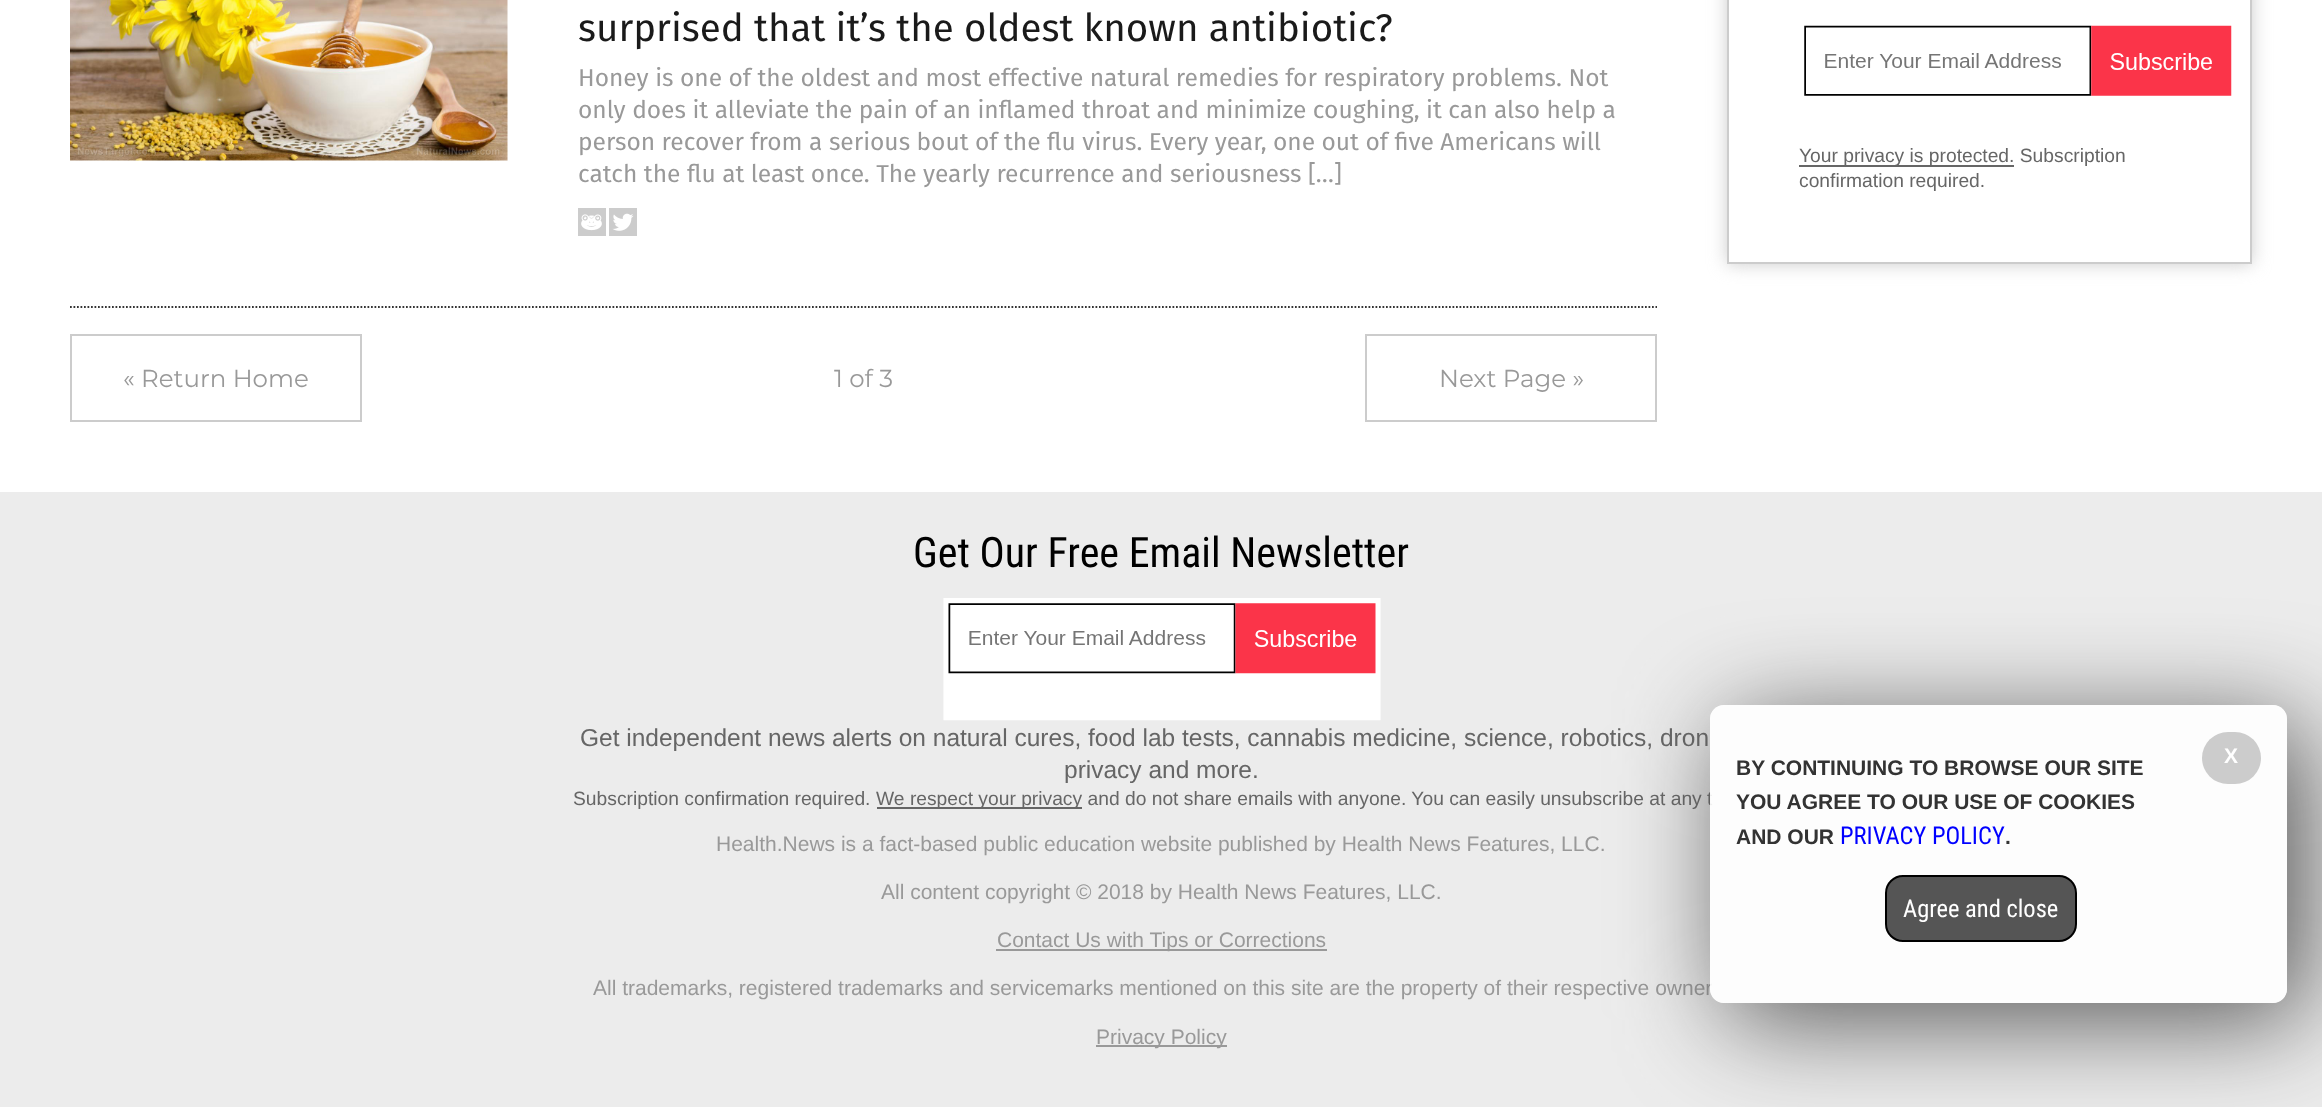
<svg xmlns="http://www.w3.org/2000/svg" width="2322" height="1107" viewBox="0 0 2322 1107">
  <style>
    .t1 { font: 38.5px Fira Sans; fill: #1a1a1a; }
    .t2 { font: 24.5px Fira Sans; fill: #999; }
    .t3 { font: 24.5px Montserrat; fill: #999; }
    .t4 { font: 19.25px Liberation Sans; fill: #666; }
    .t5 { font: 42px Roboto Condensed; fill: #000; }
    .t6 { font: 24.5px Liberation Sans; fill: #666; }
    .t7 { font: 21px Liberation Sans; fill: #999; }
    .t8 { font: bold 21px Liberation Sans; fill: #fff; }
    .t9 { font: bold 21px Liberation Sans; fill: #333; }
    .t10 { font: 24.5px Roboto Condensed; fill: #00f; }
    .t11 { font: 24.5px Roboto Condensed; fill: #fff; }
  </style>
  <defs>
    <clipPath id="clip1"><path d="M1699 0H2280V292H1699ZM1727-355H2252V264H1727Z" clip-rule="evenodd"/></clipPath>
    <clipPath id="clip2"><path d="M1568 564H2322V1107H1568ZM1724 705H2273C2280.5 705 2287 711.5 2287 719V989C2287 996.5 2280.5 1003 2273 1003H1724C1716.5 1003 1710 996.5 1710 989V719C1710 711.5 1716.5 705 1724 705Z" clip-rule="evenodd"/></clipPath>
  </defs>
  <rect width="100%" height="100%" fill="#ececec"/>
  <rect x="0" y="0" width="2322" height="492" fill="#fff"/>
  <path d="M70 307H1657" fill="none" stroke="#343434" stroke-width="1.8" stroke-dasharray="1.75 1.75"/>
  <image x="70" y="0" width="438" height="161" href="images/1.png"/>
  <text x="578" y="41" class="t1">surprised that it’s the oldest known antibiotic?</text>
  <text x="578" y="86" class="t2">Honey is one of the oldest and most effective natural remedies for respiratory problems. Not</text>
  <text x="578" y="118" class="t2">only does it alleviate the pain of an inflamed throat and minimize coughing, it can also help a</text>
  <text x="578" y="150" class="t2">person recover from a serious bout of the flu virus. Every year, one out of five Americans will</text>
  <text x="578" y="182" class="t2">catch the flu at least once. The yearly recurrence and seriousness […]</text>
  <image x="578" y="208" width="28" height="28" href="images/2.png"/>
  <image x="609" y="208" width="28" height="28" href="images/3.png"/>
  <rect x="71" y="335" width="290" height="86" fill="none" stroke="#ccc" stroke-width="2"/>
  <text x="123" y="387" class="t3">« Return Home</text>
  <text x="834" y="387" class="t3">1 of 3</text>
  <rect x="1366" y="335" width="290" height="86" fill="none" stroke="#ccc" stroke-width="2"/>
  <text x="1439" y="387" class="t3">Next Page »</text>
  <g clip-path="url(#clip1)">
    <rect x="1727" y="-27" width="525" height="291" fill="#ccc" filter="blur(9px)"/>
  </g>
  <rect x="1728" y="-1" width="523" height="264" fill="none" stroke="#ccc" stroke-width="2"/>
  <image x="1804" y="25" width="428" height="71" href="images/4.png"/>
  <rect x="1799" y="165" width="215" height="2" fill="#666"/>
  <text x="1799" y="162" class="t4">Your privacy is protected. Subscription</text>
  <text x="1799" y="187" class="t4">confirmation required.</text>
  <text x="913" y="567" class="t5">Get Our Free Email Newsletter</text>
  <image x="943" y="598" width="438" height="123" href="images/5.png"/>
  <text x="580" y="746" class="t6">Get independent news alerts on natural cures, food lab tests, cannabis medicine, science, robotics, dron</text>
  <text x="1064" y="778" class="t6">privacy and more.</text>
  <text x="573" y="805" class="t4">Subscription confirmation required.</text>
  <rect x="877" y="807" width="205" height="2" fill="#666"/>
  <text x="876" y="805" class="t4">We respect your privacy and do not share emails with anyone. You can easily unsubscribe at any t</text>
  <text x="716" y="851" class="t7">Health.News is a fact-based public education website published by Health News Features, LLC.</text>
  <text x="881" y="899" class="t7">All content copyright © 2018 by Health News Features, LLC.</text>
  <rect x="996" y="949" width="331" height="2" fill="#999"/>
  <text x="997" y="947" class="t7">Contact Us with Tips or Corrections</text>
  <text x="593" y="995" class="t7">All trademarks, registered trademarks and servicemarks mentioned on this site are the property of their respective owner</text>
  <rect x="1096" y="1045" width="131" height="2" fill="#999"/>
  <text x="1096" y="1044" class="t7">Privacy Policy</text>
  <g clip-path="url(#clip2)">
    <rect x="1727" y="723" width="578" height="297" rx="14" fill="#555" filter="blur(52.5px)"/>
  </g>
  <rect x="1710" y="705" width="577" height="298" rx="14" fill="#ffffffe6"/>
  <rect x="2202" y="732" width="59" height="52" rx="26" fill="#ccc"/>
  <text x="2224" y="763" class="t8">X</text>
  <text x="1736" y="775" class="t9">BY CONTINUING TO BROWSE OUR SITE</text>
  <text x="1736" y="809" class="t9">YOU AGREE TO OUR USE OF COOKIES</text>
  <text x="1736" y="844" class="t9">AND OUR</text>
  <text x="1840" y="844" class="t10">PRIVACY POLICY</text>
  <text x="2005" y="844" class="t9">.</text>
  <rect x="1886" y="876" width="190" height="65" rx="17" fill="#555" stroke="#000" stroke-width="2"/>
  <text x="1903" y="917" class="t11">Agree and close</text>
</svg>
